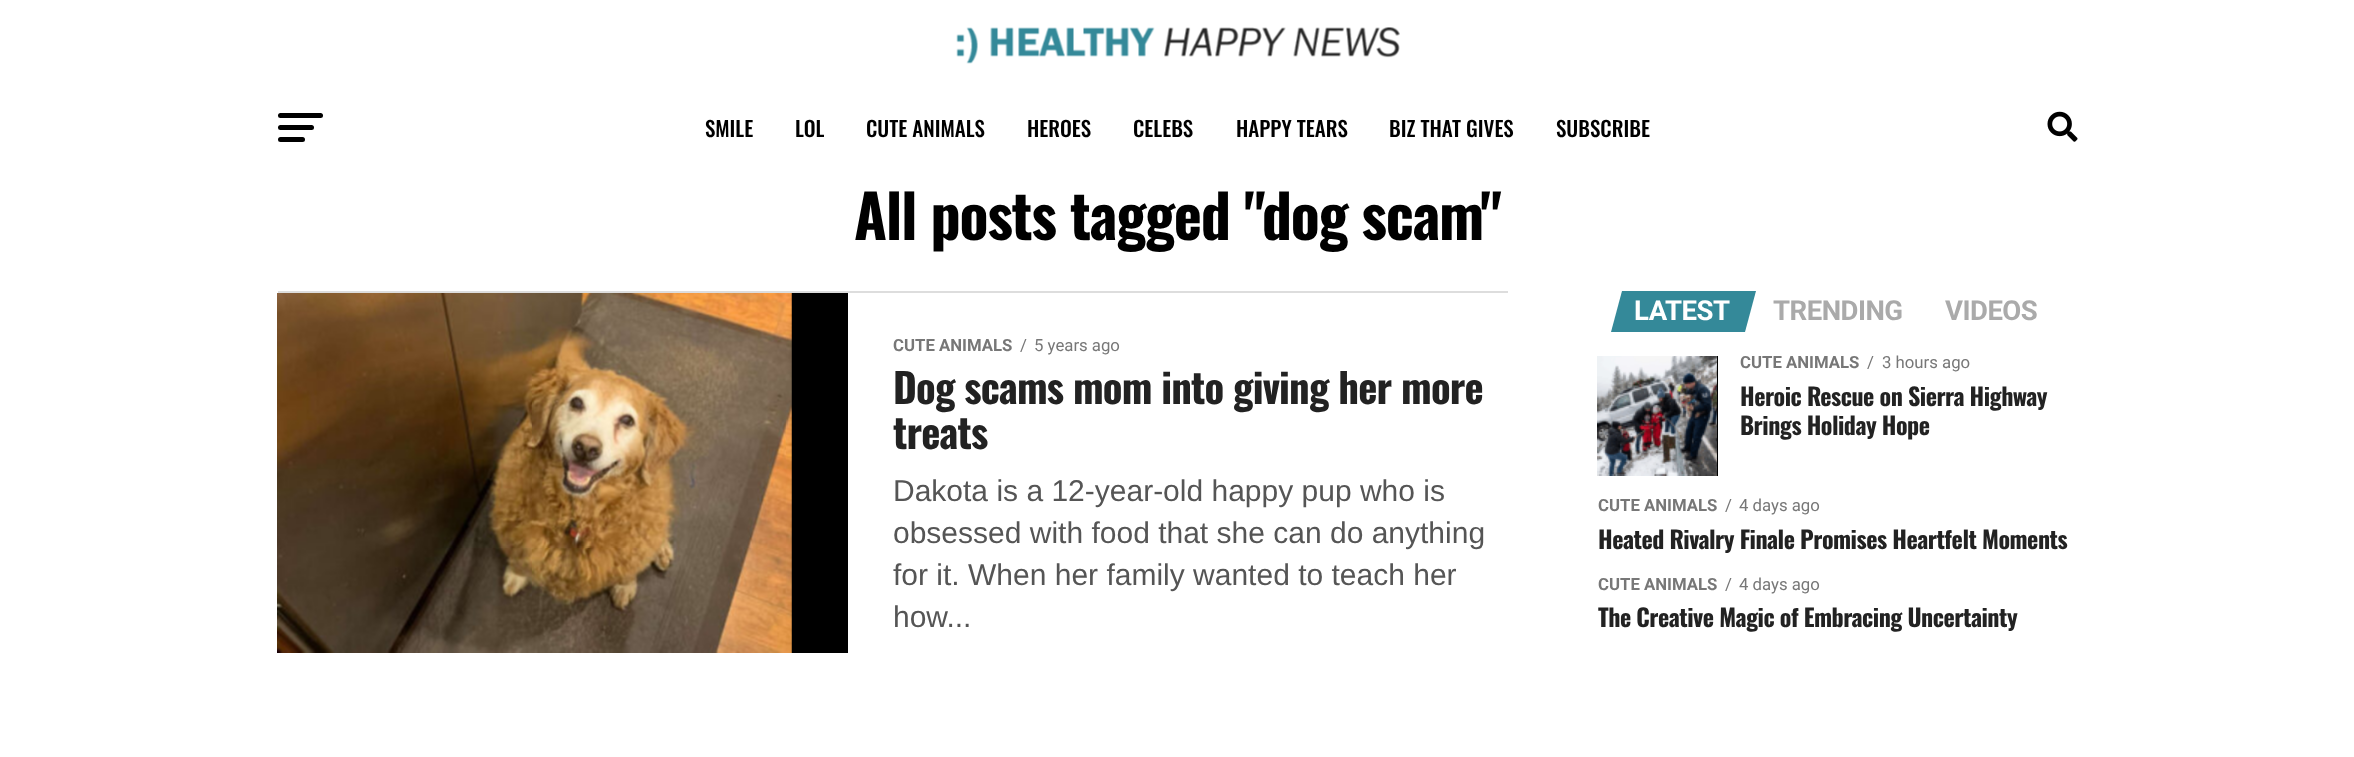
<svg xmlns="http://www.w3.org/2000/svg" width="2354" height="757" viewBox="0 0 2354 757">
  <style>
    .t1 { font: 500 21px Oswald; fill: #000; }
    .t2 { font: bold 60px Oswald; letter-spacing: -1.2px; fill: #000; }
    .t3 { font: bold 16.75px Roboto; fill: #777; }
    .t4 { font: 16.75px Roboto; fill: #777; }
    .t5 { font: bold 40.75px Oswald; letter-spacing: -0.8px; fill: #222; }
    .t6 { font: 30px Liberation Sans; fill: #555; }
    .t7 { font: bold 27.5px Roboto; letter-spacing: -0.5px; fill: #fff; }
    .t8 { font: bold 27.5px Roboto; letter-spacing: -0.5px; fill: #aaa; }
    .t9 { font: bold 24px Oswald; letter-spacing: -0.5px; fill: #222; }
  </style>
  <rect width="100%" height="100%" fill="#fff"/>
  <image x="956" y="27" width="444" height="37" href="images/1.png"/>
  <rect x="278" y="113" width="45" height="5" rx="2.5" fill="#000"/>
  <rect x="278" y="125" width="36" height="5" rx="2.5" fill="#000"/>
  <rect x="278" y="137" width="27" height="5" rx="2.5" fill="#000"/>
  <text x="705" y="137" class="t1">SMILE</text>
  <text x="795" y="137" class="t1">LOL</text>
  <text x="866" y="137" class="t1">CUTE ANIMALS</text>
  <text x="1027" y="137" class="t1">HEROES</text>
  <text x="1133" y="137" class="t1">CELEBS</text>
  <text x="1236" y="137" class="t1">HAPPY TEARS</text>
  <text x="1389" y="137" class="t1">BIZ THAT GIVES</text>
  <text x="1556" y="137" class="t1">SUBSCRIBE</text>
  <image x="2047" y="111" width="31" height="31" href="images/2.png"/>
  <text x="854" y="240" class="t2">All posts tagged "dog scam"</text>
  <rect x="278" y="291" width="1230" height="2" fill="#ddd"/>
  <rect x="791" y="293" width="57" height="360" fill="#000"/>
  <image x="277" y="293" width="515" height="360" href="images/3.png"/>
  <text x="893" y="351" class="t3">CUTE ANIMALS</text>
  <text x="1020" y="351" class="t4">/</text>
  <text x="1034" y="351" class="t4">5 years ago</text>
  <text x="893" y="404" class="t5">Dog scams mom into giving her more</text>
  <text x="893" y="449" class="t5">treats</text>
  <text x="893" y="501" class="t6">Dakota is a 12-year-old happy pup who is</text>
  <text x="893" y="543" class="t6">obsessed with food that she can do anything</text>
  <text x="893" y="585" class="t6">for it. When her family wanted to teach her</text>
  <text x="893" y="627" class="t6">how...</text>
  <path d="M1622 291H1756L1745 332H1611Z" fill="#348999"/>
  <text x="1634" y="320" class="t7">LATEST</text>
  <text x="1773" y="320" class="t8">TRENDING</text>
  <text x="1945" y="320" class="t8">VIDEOS</text>
  <rect x="1717" y="356" width="1" height="120" fill="#000"/>
  <image x="1597" y="356" width="120" height="120" href="images/4.png"/>
  <text x="1740" y="368" class="t3">CUTE ANIMALS</text>
  <text x="1867" y="368" class="t4">/</text>
  <text x="1882" y="368" class="t4">3 hours ago</text>
  <text x="1740" y="406" class="t9">Heroic Rescue on Sierra Highway</text>
  <text x="1740" y="435" class="t9">Brings Holiday Hope</text>
  <text x="1598" y="511" class="t3">CUTE ANIMALS</text>
  <text x="1725" y="511" class="t4">/</text>
  <text x="1739" y="511" class="t4">4 days ago</text>
  <text x="1598" y="549" class="t9">Heated Rivalry Finale Promises Heartfelt Moments</text>
  <text x="1598" y="590" class="t3">CUTE ANIMALS</text>
  <text x="1725" y="590" class="t4">/</text>
  <text x="1739" y="590" class="t4">4 days ago</text>
  <text x="1598" y="627" class="t9">The Creative Magic of Embracing Uncertainty</text>
</svg>
